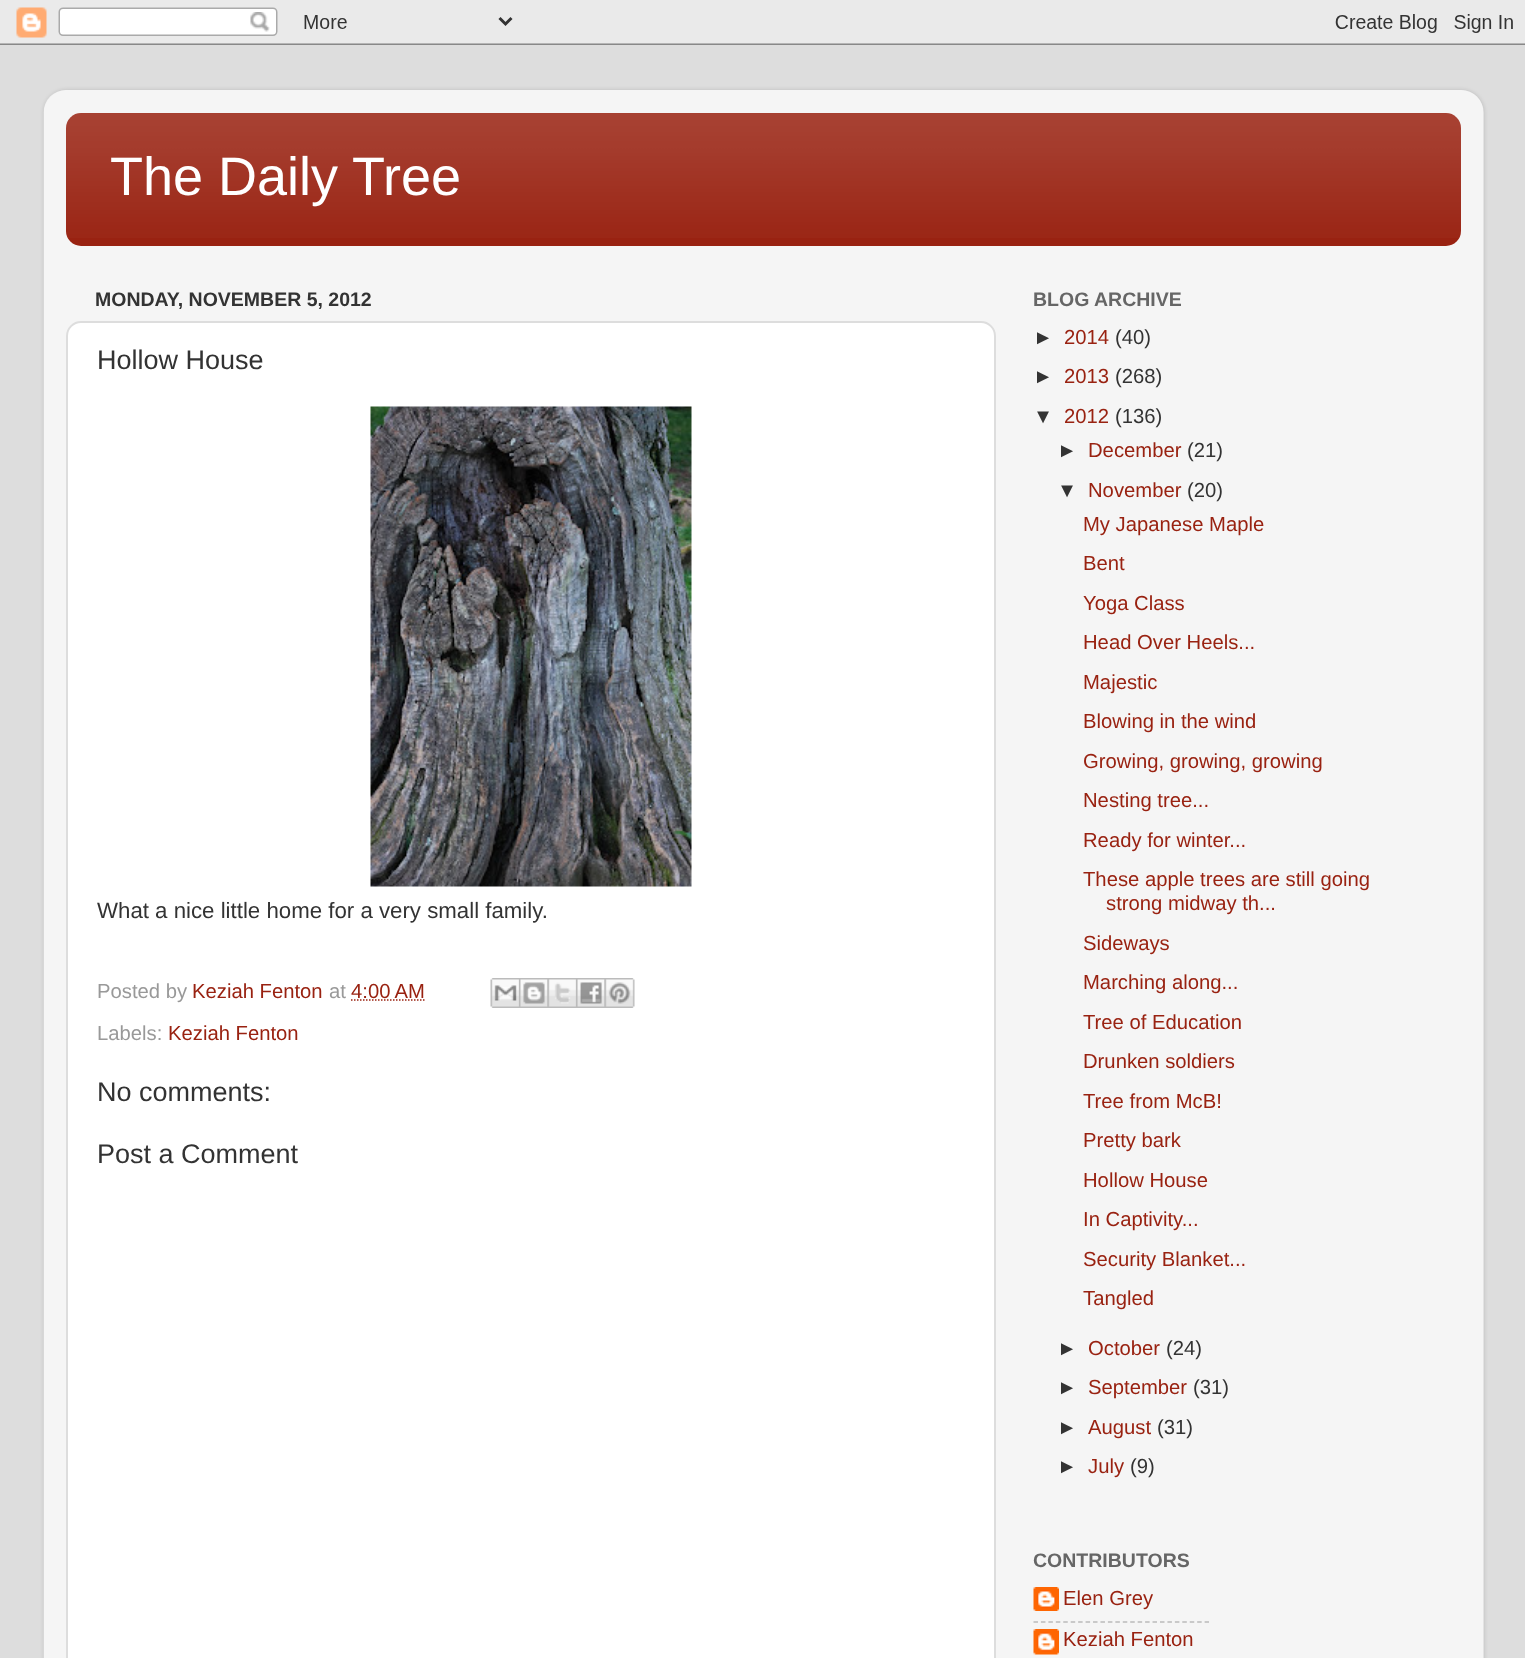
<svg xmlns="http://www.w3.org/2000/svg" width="1525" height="1658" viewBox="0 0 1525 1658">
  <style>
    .t1 { font: 54px Liberation Sans; fill: #fff; }
    .t2 { font: bold 19.5px Liberation Sans; fill: #333; }
    .t3 { font: 27px Liberation Sans; fill: #333; }
    .t4 { font: 22.25px Liberation Sans; fill: #333; }
    .t5 { font: 20.25px Liberation Sans; fill: #999; }
    .t6 { font: 20.25px Liberation Sans; fill: #921; }
    .t7 { font: bold 19.5px Liberation Sans; fill: #666; }
    .t8 { font: 20.25px Liberation Sans; fill: #333; }
  </style>
  <defs>
    <clipPath id="clip1"><path d="M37 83H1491V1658H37ZM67 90H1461C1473.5 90 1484 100.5 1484 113V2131C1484 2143.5 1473.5 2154 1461 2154H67C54.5 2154 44 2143.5 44 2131V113C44 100.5 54.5 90 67 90Z" clip-rule="evenodd"/></clipPath>
  </defs>
  <rect width="100%" height="100%" fill="#ddd"/>
  <image x="0" y="0" width="1525" height="45" href="images/1.png"/>
  <g clip-path="url(#clip1)">
    <rect x="44" y="90" width="1440" height="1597" rx="23" fill="#00000026" filter="blur(2px)"/>
  </g>
  <image x="43" y="90" width="1441" height="1568" href="images/2.png"/>
  <rect x="66" y="113" width="1395" height="133" rx="15" fill="#921"/>
  <image x="66" y="113" width="1395" height="125" href="images/3.png"/>
  <text x="110" y="195" class="t1">The Daily Tree</text>
  <text x="95" y="306" class="t2">MONDAY, NOVEMBER 5, 2012</text>
  <rect x="67" y="322" width="928" height="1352" rx="14" fill="#fff" stroke="#ddd" stroke-width="2"/>
  <text x="97" y="369" class="t3">Hollow House</text>
  <image x="370" y="406" width="322" height="481" href="images/4.png"/>
  <text x="97" y="918" class="t4">What a nice little home for a very small family.</text>
  <text x="97" y="998" class="t5">Posted by</text>
  <text x="192" y="998" class="t6">Keziah Fenton</text>
  <text x="329" y="998" class="t5">at</text>
  <text x="351" y="998" class="t6">4:00 AM</text>
  <path d="M351 1000H425" fill="none" stroke="#921" stroke-width="1.5" stroke-dasharray="1.5 1.5"/>
  <image x="490" y="978" width="29" height="30" href="images/5.png"/>
  <image x="519" y="978" width="29" height="30" href="images/6.png"/>
  <image x="547" y="978" width="29" height="30" href="images/7.png"/>
  <image x="576" y="978" width="29" height="30" href="images/8.png"/>
  <image x="604" y="978" width="31" height="30" href="images/9.png"/>
  <text x="97" y="1040" class="t5">Labels:</text>
  <text x="168" y="1040" class="t6">Keziah Fenton</text>
  <text x="97" y="1101" class="t3">No comments:</text>
  <text x="97" y="1163" class="t3">Post a Comment</text>
  <text x="1033" y="306" class="t7">BLOG ARCHIVE</text>
  <text x="1033" y="344" class="t8">►</text>
  <text x="1064" y="344" class="t6">2014</text>
  <text x="1115" y="344" class="t8">(40)</text>
  <text x="1033" y="383" class="t8">►</text>
  <text x="1064" y="383" class="t6">2013</text>
  <text x="1115" y="383" class="t8">(268)</text>
  <text x="1033" y="423" class="t8">▼</text>
  <text x="1064" y="423" class="t6">2012</text>
  <text x="1115" y="423" class="t8">(136)</text>
  <text x="1057" y="457" class="t8">►</text>
  <text x="1088" y="457" class="t6">December</text>
  <text x="1187" y="457" class="t8">(21)</text>
  <text x="1057" y="497" class="t8">▼</text>
  <text x="1088" y="497" class="t6">November</text>
  <text x="1187" y="497" class="t8">(20)</text>
  <text x="1083" y="531" class="t6">My Japanese Maple</text>
  <text x="1083" y="570" class="t6">Bent</text>
  <text x="1083" y="610" class="t6">Yoga Class</text>
  <text x="1083" y="649" class="t6">Head Over Heels...</text>
  <text x="1083" y="689" class="t6">Majestic</text>
  <text x="1083" y="728" class="t6">Blowing in the wind</text>
  <text x="1083" y="768" class="t6">Growing, growing, growing</text>
  <text x="1083" y="807" class="t6">Nesting tree...</text>
  <text x="1083" y="847" class="t6">Ready for winter...</text>
  <text x="1083" y="886" class="t6">These apple trees are still going</text>
  <text x="1106" y="910" class="t6">strong midway th...</text>
  <text x="1083" y="950" class="t6">Sideways</text>
  <text x="1083" y="989" class="t6">Marching along...</text>
  <text x="1083" y="1029" class="t6">Tree of Education</text>
  <text x="1083" y="1068" class="t6">Drunken soldiers</text>
  <text x="1083" y="1108" class="t6">Tree from McB!</text>
  <text x="1083" y="1147" class="t6">Pretty bark</text>
  <text x="1083" y="1187" class="t6">Hollow House</text>
  <text x="1083" y="1226" class="t6">In Captivity...</text>
  <text x="1083" y="1266" class="t6">Security Blanket...</text>
  <text x="1083" y="1305" class="t6">Tangled</text>
  <text x="1057" y="1355" class="t8">►</text>
  <text x="1088" y="1355" class="t6">October</text>
  <text x="1166" y="1355" class="t8">(24)</text>
  <text x="1057" y="1394" class="t8">►</text>
  <text x="1088" y="1394" class="t6">September</text>
  <text x="1193" y="1394" class="t8">(31)</text>
  <text x="1057" y="1434" class="t8">►</text>
  <text x="1088" y="1434" class="t6">August</text>
  <text x="1157" y="1434" class="t8">(31)</text>
  <text x="1057" y="1473" class="t8">►</text>
  <text x="1088" y="1473" class="t6">July</text>
  <text x="1130" y="1473" class="t8">(9)</text>
  <text x="1033" y="1567" class="t7">CONTRIBUTORS</text>
  <image x="1033" y="1587" width="26" height="24" href="images/10.png"/>
  <text x="1063" y="1605" class="t6">Elen Grey</text>
  <path d="M1033.5 1622H1209" fill="none" stroke="#bababa" stroke-width="1.5" stroke-dasharray="4.5 2.94"/>
  <image x="1033" y="1629" width="26" height="26" href="images/11.png"/>
  <text x="1063" y="1646" class="t6">Keziah Fenton</text>
</svg>
